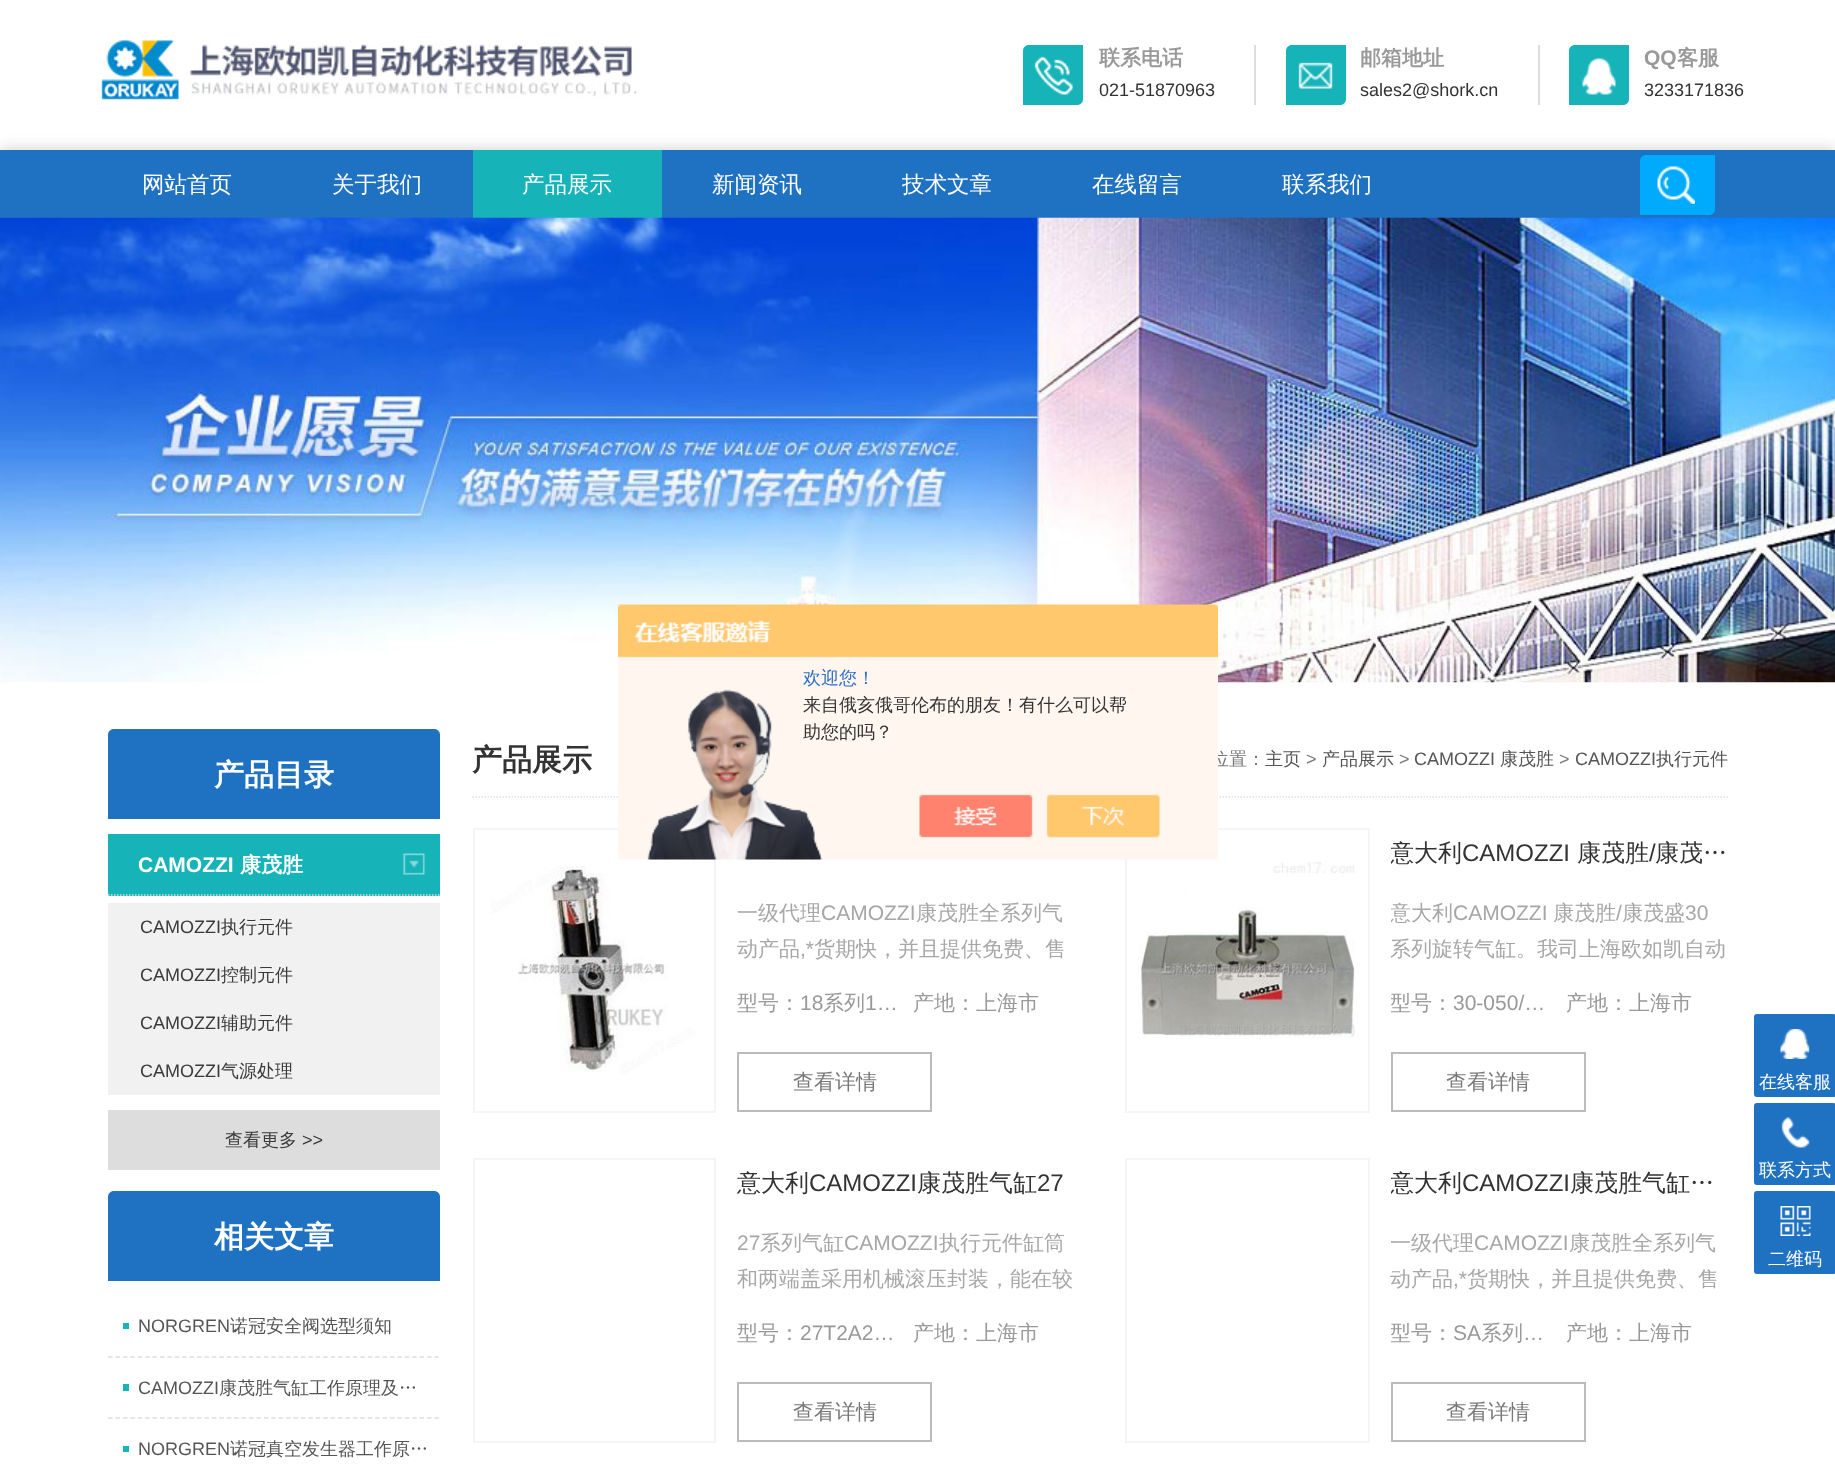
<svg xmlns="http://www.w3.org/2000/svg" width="1835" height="1464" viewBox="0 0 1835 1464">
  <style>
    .t1 { font: bold 21px WenQuanYi Zen Hei; fill: #999; }
    .t2 { font: 18px Liberation Sans; fill: #333; }
    .t3 { font: bold 21px Liberation Sans; fill: #999; }
    .t4 { font: 500 22.5px WenQuanYi Zen Hei; fill: #fff; }
    .t5 { font: 500 18px WenQuanYi Zen Hei; fill: #787878; }
    .t6 { font: 500 18px WenQuanYi Zen Hei; fill: #2e6ec6; }
    .t7 { font: 500 18px WenQuanYi Zen Hei; fill: #333; }
    .t8 { font: bold 30px WenQuanYi Zen Hei; fill: #fff; }
    .t9 { font: bold 21px Liberation Sans; fill: #fff; }
    .t10 { font: bold 21px WenQuanYi Zen Hei; fill: #fff; }
    .t11 { font: 18px Liberation Sans; fill: #3a3a3a; }
    .t12 { font: 500 18px WenQuanYi Zen Hei; fill: #3a3a3a; }
    .t13 { font: 18px Liberation Sans; fill: #555; }
    .t14 { font: 500 18px WenQuanYi Zen Hei; fill: #555; }
    .t15 { font: bold 30px WenQuanYi Zen Hei; fill: #333; }
    .t16 { font: 18px Liberation Sans; fill: #787878; }
    .t17 { font: 500 21px WenQuanYi Zen Hei; fill: #a7a7a7; }
    .t18 { font: 21px Liberation Sans; fill: #a7a7a7; }
    .t19 { font: 500 21px WenQuanYi Zen Hei; fill: #999; }
    .t20 { font: 21px Liberation Sans; fill: #999; }
    .t21 { font: 500 21px WenQuanYi Zen Hei; fill: #787878; }
    .t22 { font: 500 24px WenQuanYi Zen Hei; fill: #333; }
    .t23 { font: 24px Liberation Sans; fill: #333; }
    .t24 { font: 500 18px WenQuanYi Zen Hei; fill: #fff; }
  </style>
  <defs>
    <clipPath id="clip1"><rect x="1391" y="828" width="337" height="51"/></clipPath>
    <clipPath id="clip2"><rect x="1391" y="894" width="337" height="72"/></clipPath>
    <clipPath id="clip3"><rect x="1391" y="981" width="162" height="42"/></clipPath>
    <clipPath id="clip4"><rect x="1391" y="1158" width="337" height="51"/></clipPath>
    <clipPath id="clip5"><rect x="1391" y="1311" width="162" height="42"/></clipPath>
  </defs>
  <rect width="100%" height="100%" fill="#fff"/>
  <image x="101" y="40" width="536" height="60" href="images/1.png"/>
  <rect x="1254" y="45" width="2" height="60" fill="#ddd"/>
  <path d="M1029 45H1083V99C1083 102.5 1080.5 105 1077 105H1023V51C1023 47.5 1025.5 45 1029 45Z" fill="#16b4b9"/>
  <image x="1034" y="56" width="39" height="39" href="images/2.png"/>
  <text x="1099" y="65" class="t1">联系电话</text>
  <text x="1099" y="96" class="t2">021-51870963</text>
  <rect x="1538" y="45" width="2" height="60" fill="#ddd"/>
  <path d="M1292 45H1346V99C1346 102.5 1343.5 105 1340 105H1286V51C1286 47.5 1288.5 45 1292 45Z" fill="#16b4b9"/>
  <image x="1298" y="62" width="35" height="27" href="images/3.png"/>
  <text x="1360" y="65" class="t1">邮箱地址</text>
  <text x="1360" y="96" class="t2">sales2@shork.cn</text>
  <path d="M1575 45H1629V99C1629 102.5 1626.5 105 1623 105H1569V51C1569 47.5 1571.5 45 1575 45Z" fill="#16b4b9"/>
  <image x="1582" y="58" width="34" height="37" href="images/4.png"/>
  <text x="1644" y="65" class="t3">QQ</text>
  <text x="1677" y="65" class="t1">客服</text>
  <text x="1644" y="96" class="t2">3233171836</text>
  <rect x="0" y="150" width="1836" height="68" fill="#00000033" filter="blur(7.5px)"/>
  <rect x="0" y="150" width="1835" height="68" fill="#1f71c2"/>
  <text x="142" y="192" class="t4">网站首页</text>
  <text x="332" y="192" class="t4">关于我们</text>
  <rect x="473" y="150" width="189" height="68" fill="#16b4b9"/>
  <text x="522" y="192" class="t4">产品展示</text>
  <text x="712" y="192" class="t4">新闻资讯</text>
  <text x="902" y="192" class="t4">技术文章</text>
  <text x="1092" y="192" class="t4">在线留言</text>
  <text x="1282" y="192" class="t4">联系我们</text>
  <path d="M1646 155H1715V209C1715 212.5 1712.5 215 1709 215H1640V161C1640 157.5 1642.5 155 1646 155Z" fill="#00abfd"/>
  <image x="1657" y="166" width="38" height="38" href="images/5.png"/>
  <image x="0" y="217" width="1835" height="466" href="images/6.png"/>
  <path d="M472.5 797H1728" fill="none" stroke="#dedede" stroke-width="1.5" stroke-dasharray="1.5 1.5"/>
  <text x="1211" y="765" class="t5">位置：</text>
  <rect x="474" y="829" width="241" height="283" fill="none" stroke="#f5f5f5" stroke-width="2"/>
  <rect x="1126" y="829" width="243" height="283" fill="none" stroke="#f5f5f5" stroke-width="2"/>
  <image x="618" y="604" width="600" height="256" href="images/7.png"/>
  <text x="803" y="684" class="t6">欢迎您！</text>
  <text x="803" y="711" class="t7">来自俄亥俄哥伦布的朋友！有什么可以帮</text>
  <text x="803" y="738" class="t7">助您的吗？</text>
  <path d="M114 729H434C437.5 729 440 731.5 440 735V819H108V735C108 731.5 110.5 729 114 729Z" fill="#1f71c2"/>
  <text x="214" y="785" class="t8">产品目录</text>
  <rect x="108" y="834" width="332" height="62" fill="#16b4b9"/>
  <path d="M108 895H439.5" fill="none" stroke="#dedede" stroke-width="1.5" stroke-dasharray="1.5 1.5"/>
  <text x="138" y="872" class="t9">CAMOZZI</text>
  <text x="240" y="872" class="t10">康茂胜</text>
  <image x="403" y="853" width="22" height="22" href="images/8.png"/>
  <rect x="108" y="903" width="332" height="192" fill="#f1f1f1"/>
  <text x="140" y="933" class="t11">CAMOZZI</text>
  <text x="221" y="933" class="t12">执行元件</text>
  <text x="140" y="981" class="t11">CAMOZZI</text>
  <text x="221" y="981" class="t12">控制元件</text>
  <text x="140" y="1029" class="t11">CAMOZZI</text>
  <text x="221" y="1029" class="t12">辅助元件</text>
  <text x="140" y="1077" class="t11">CAMOZZI</text>
  <text x="221" y="1077" class="t12">气源处理</text>
  <rect x="108" y="1110" width="332" height="60" fill="#ddd"/>
  <text x="225" y="1146" class="t12">查看更多</text>
  <text x="302" y="1146" class="t11">&gt;&gt;</text>
  <path d="M114 1191H434C437.5 1191 440 1193.5 440 1197V1281H108V1197C108 1193.5 110.5 1191 114 1191Z" fill="#1f71c2"/>
  <text x="214" y="1247" class="t8">相关文章</text>
  <rect x="123" y="1323" width="6" height="6" fill="#16b4b9"/>
  <path d="M108 1357H439.5" fill="none" stroke="#dedede" stroke-width="1.5" stroke-dasharray="4.5 2.92"/>
  <text x="138" y="1332" class="t13">NORGREN</text>
  <text x="230" y="1332" class="t14">诺冠安全阀选型须知</text>
  <rect x="123" y="1384" width="6" height="7" fill="#16b4b9"/>
  <path d="M108 1418H439.5" fill="none" stroke="#dedede" stroke-width="1.5" stroke-dasharray="4.5 2.92"/>
  <text x="138" y="1394" class="t13">CAMOZZI</text>
  <text x="219" y="1394" class="t14">康茂胜气缸工作原理及…</text>
  <rect x="123" y="1446" width="6" height="6" fill="#16b4b9"/>
  <text x="138" y="1455" class="t13">NORGREN</text>
  <text x="230" y="1455" class="t14">诺冠真空发生器工作原…</text>
  <text x="472" y="770" class="t15">产品展示</text>
  <text x="1265" y="765" class="t14">主页</text>
  <text x="1306" y="765" class="t16">&gt;</text>
  <text x="1322" y="765" class="t14">产品展示</text>
  <text x="1399" y="765" class="t16">&gt;</text>
  <text x="1414" y="765" class="t13">CAMOZZI</text>
  <text x="1500" y="765" class="t14">康茂胜</text>
  <text x="1559" y="765" class="t16">&gt;</text>
  <text x="1575" y="765" class="t13">CAMOZZI</text>
  <text x="1656" y="765" class="t14">执行元件</text>
  <image x="491" y="865" width="204" height="209" href="images/9.png"/>
  <text x="737" y="920" class="t17">一级代理</text>
  <text x="821" y="920" class="t18">CAMOZZI</text>
  <text x="916" y="920" class="t17">康茂胜全系列气</text>
  <text x="737" y="956" class="t17">动产品</text>
  <text x="800" y="956" class="t18">,*</text>
  <text x="814" y="956" class="t17">货期快，并且提供免费、售</text>
  <text x="737" y="1010" class="t19">型号：</text>
  <text x="800" y="1010" class="t20">18</text>
  <text x="823" y="1010" class="t19">系列</text>
  <text x="865" y="1010" class="t20">1…</text>
  <text x="913" y="1010" class="t19">产地：上海市</text>
  <rect x="738" y="1053" width="193" height="58" fill="none" stroke="#bbb" stroke-width="2"/>
  <text x="793" y="1089" class="t21">查看详情</text>
  <image x="1138" y="862" width="217" height="177" href="images/10.png"/>
  <g clip-path="url(#clip1)">
    <text x="1390" y="861" class="t22">意大利</text>
  </g>
  <text x="1462" y="861" class="t23">CAMOZZI</text>
  <text x="1577" y="861" class="t22">康茂胜</text>
  <text x="1649" y="861" class="t23">/</text>
  <text x="1655" y="861" class="t22">康茂…</text>
  <g clip-path="url(#clip2)">
    <text x="1390" y="920" class="t17">意大利</text>
  </g>
  <text x="1453" y="920" class="t18">CAMOZZI</text>
  <text x="1553" y="920" class="t17">康茂胜</text>
  <text x="1616" y="920" class="t18">/</text>
  <text x="1622" y="920" class="t17">康茂盛</text>
  <text x="1685" y="920" class="t18">30</text>
  <text x="1390" y="956" class="t17">系列旋转气缸。我司上海欧如凯自动</text>
  <g clip-path="url(#clip3)">
    <text x="1390" y="1010" class="t19">型号：</text>
  </g>
  <text x="1453" y="1010" class="t20">30-050/…</text>
  <text x="1566" y="1010" class="t19">产地：上海市</text>
  <rect x="1392" y="1053" width="193" height="58" fill="none" stroke="#bbb" stroke-width="2"/>
  <text x="1446" y="1089" class="t21">查看详情</text>
  <rect x="474" y="1159" width="241" height="283" fill="none" stroke="#f5f5f5" stroke-width="2"/>
  <text x="737" y="1191" class="t22">意大利</text>
  <text x="809" y="1191" class="t23">CAMOZZI</text>
  <text x="917" y="1191" class="t22">康茂胜气缸</text>
  <text x="1037" y="1191" class="t23">27</text>
  <text x="737" y="1250" class="t18">27</text>
  <text x="760" y="1250" class="t17">系列气缸</text>
  <text x="844" y="1250" class="t18">CAMOZZI</text>
  <text x="939" y="1250" class="t17">执行元件缸筒</text>
  <text x="737" y="1286" class="t17">和两端盖采用机械滚压封装，能在较</text>
  <text x="737" y="1340" class="t19">型号：</text>
  <text x="800" y="1340" class="t20">27T2A2…</text>
  <text x="913" y="1340" class="t19">产地：上海市</text>
  <rect x="738" y="1383" width="193" height="58" fill="none" stroke="#bbb" stroke-width="2"/>
  <text x="793" y="1419" class="t21">查看详情</text>
  <rect x="1126" y="1159" width="243" height="283" fill="none" stroke="#f5f5f5" stroke-width="2"/>
  <g clip-path="url(#clip4)">
    <text x="1390" y="1191" class="t22">意大利</text>
  </g>
  <text x="1462" y="1191" class="t23">CAMOZZI</text>
  <text x="1570" y="1191" class="t22">康茂胜气缸…</text>
  <text x="1390" y="1250" class="t17">一级代理</text>
  <text x="1474" y="1250" class="t18">CAMOZZI</text>
  <text x="1569" y="1250" class="t17">康茂胜全系列气</text>
  <text x="1390" y="1286" class="t17">动产品</text>
  <text x="1453" y="1286" class="t18">,*</text>
  <text x="1467" y="1286" class="t17">货期快，并且提供免费、售</text>
  <g clip-path="url(#clip5)">
    <text x="1390" y="1340" class="t19">型号：</text>
  </g>
  <text x="1453" y="1340" class="t20">SA</text>
  <text x="1481" y="1340" class="t19">系列</text>
  <text x="1523" y="1340" class="t20">…</text>
  <text x="1566" y="1340" class="t19">产地：上海市</text>
  <rect x="1392" y="1383" width="193" height="58" fill="none" stroke="#bbb" stroke-width="2"/>
  <text x="1446" y="1419" class="t21">查看详情</text>
  <rect x="1754" y="1014" width="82" height="83" rx="3" fill="#1f71c2"/>
  <image x="1780" y="1029" width="30" height="30" href="images/11.png"/>
  <text x="1759" y="1088" class="t24">在线客服</text>
  <rect x="1754" y="1103" width="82" height="82" rx="3" fill="#1f71c2"/>
  <image x="1781" y="1117" width="29" height="31" href="images/12.png"/>
  <text x="1759" y="1176" class="t24">联系方式</text>
  <rect x="1754" y="1191" width="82" height="83" rx="3" fill="#1f71c2"/>
  <image x="1780" y="1206" width="31" height="30" href="images/13.png"/>
  <text x="1768" y="1265" class="t24">二维码</text>
</svg>
